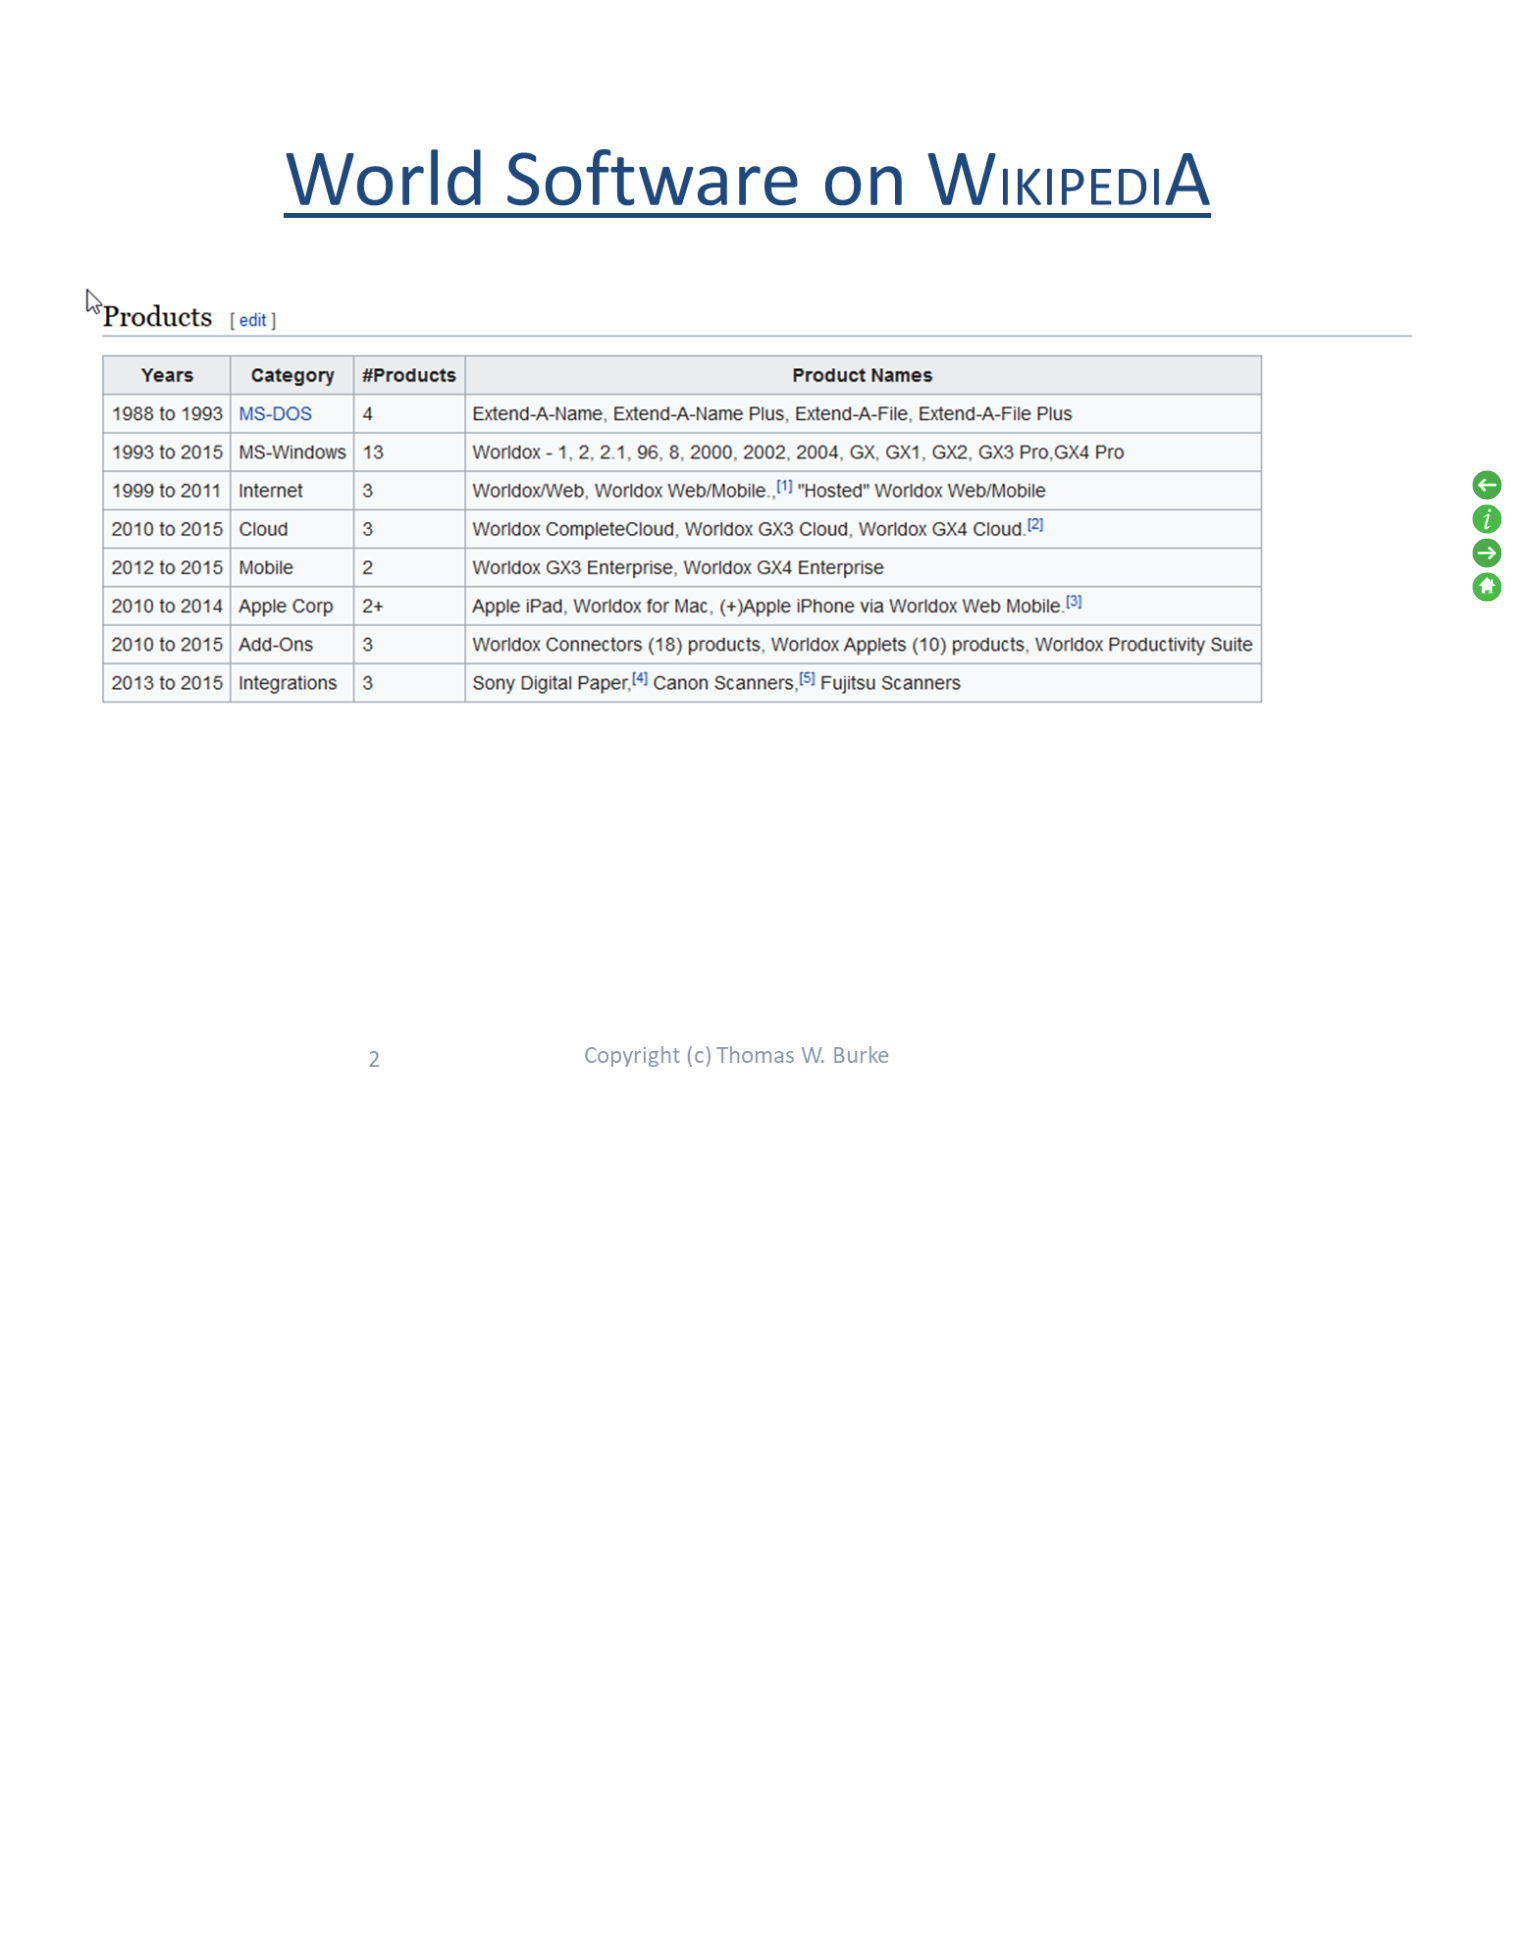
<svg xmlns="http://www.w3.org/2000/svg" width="1520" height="1959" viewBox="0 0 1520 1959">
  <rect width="100%" height="100%" fill="#fff"/>
  <image x="85" y="149" width="1328" height="918" href="images/1.png"/>
  <image x="1472" y="470" width="30" height="30" href="images/2.png"/>
  <image x="1472" y="504" width="30" height="30" href="images/3.png"/>
  <image x="1472" y="538" width="30" height="30" href="images/4.png"/>
  <image x="1472" y="572" width="30" height="30" href="images/5.png"/>
</svg>
